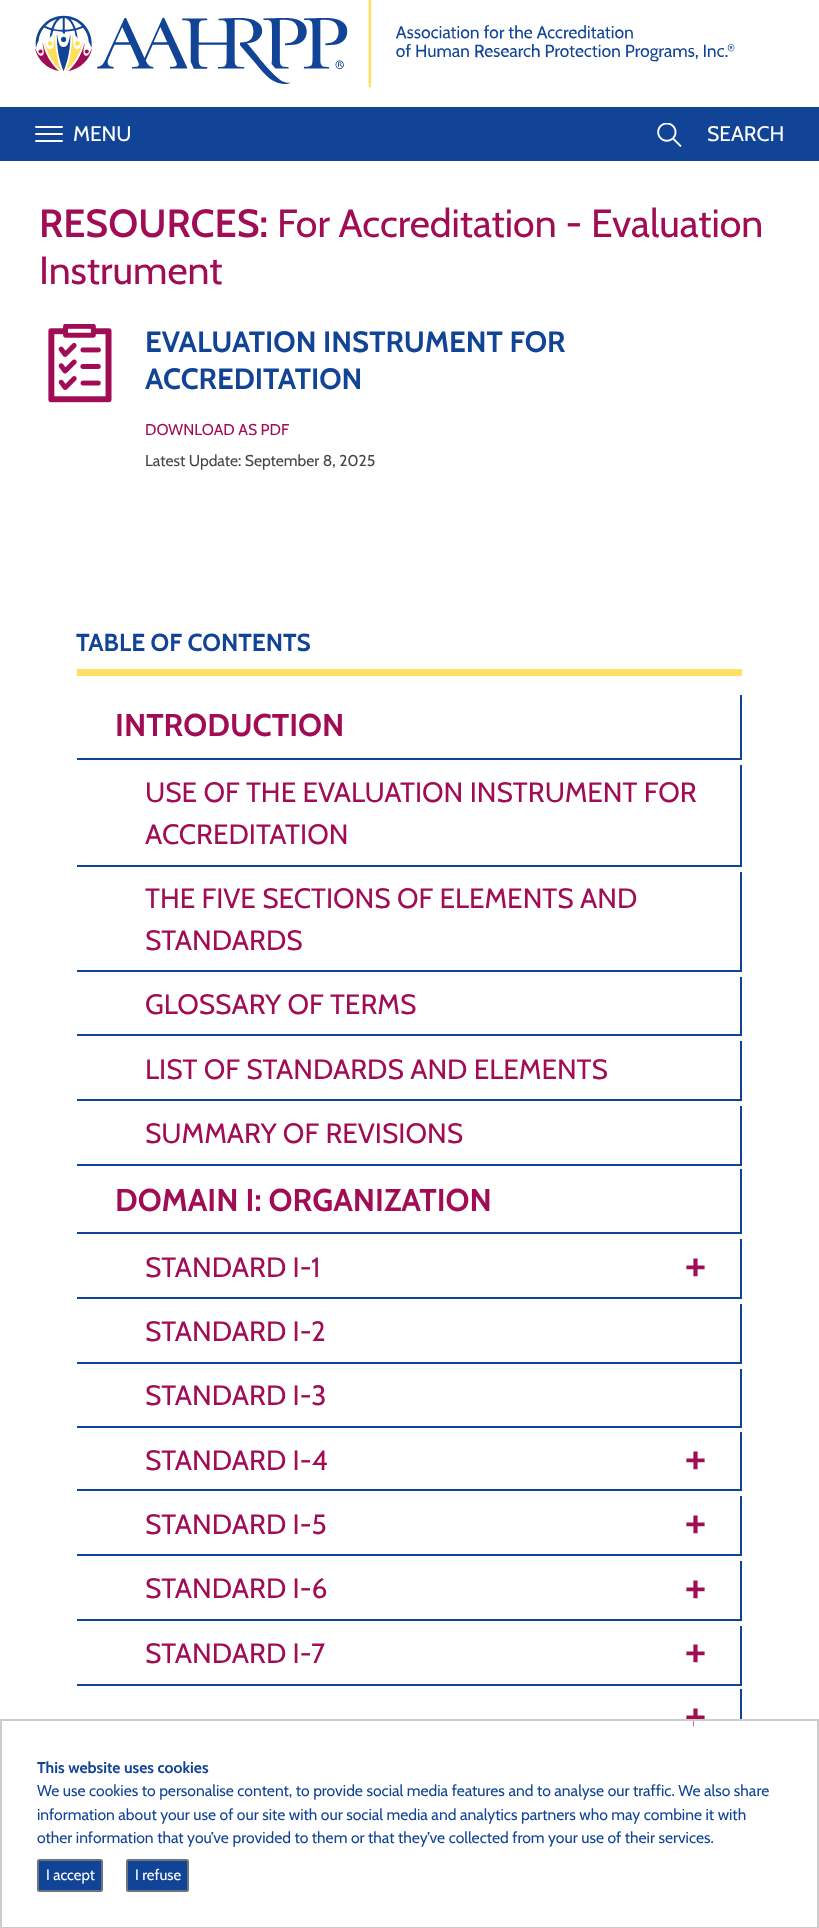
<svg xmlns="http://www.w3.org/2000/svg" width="819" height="1928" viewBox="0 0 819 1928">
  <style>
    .t1 { font: 21px Cabin; fill: #fff; }
    .t2 { font: 600 39.25px Cabin; fill: #a10d55; }
    .t3 { font: 39.25px Cabin; fill: #a10d55; }
    .t4 { font: bold 29.4px Cabin; fill: #114496; }
    .t5 { font: 15.7px Cabin; fill: #a10d55; }
    .t6 { font: 15.7px Cabin; fill: #454545; }
    .t7 { font: bold 24.5px Cabin; fill: #114496; }
    .t8 { font: bold 31.5px Cabin; fill: #a10d55; }
    .t9 { font: 28px Cabin; fill: #a10d55; }
    .t10 { font: 52px Cabin; fill: #a10d55; }
    .t11 { font: bold 15.7px Cabin; fill: #114496; }
    .t12 { font: 15.7px Cabin; fill: #114496; }
    .t13 { font: 15px Cabin; fill: #fff; }
  </style>
  <rect width="100%" height="100%" fill="#fff"/>
  <image x="35" y="0" width="700" height="88" href="images/1.png"/>
  <rect x="0" y="107" width="819" height="54" fill="#114496"/>
  <rect x="35" y="126" width="28" height="2" rx="1" fill="#fff"/>
  <rect x="35" y="133" width="28" height="2" rx="1" fill="#fff"/>
  <rect x="35" y="140" width="28" height="2" rx="1" fill="#fff"/>
  <text x="73" y="141" class="t1">MENU</text>
  <image x="657" y="123" width="25" height="24" href="images/2.png"/>
  <text x="707" y="141" class="t1">SEARCH</text>
  <text x="39" y="237" class="t2">RESOURCES:</text>
  <text x="277" y="237" class="t3">For Accreditation - Evaluation</text>
  <text x="39" y="284" class="t3">Instrument</text>
  <image x="48" y="324" width="64" height="79" href="images/3.png"/>
  <text x="145" y="352" class="t4">EVALUATION INSTRUMENT FOR</text>
  <text x="145" y="389" class="t4">ACCREDITATION</text>
  <text x="145" y="435" class="t5">DOWNLOAD AS PDF</text>
  <text x="145" y="466" class="t6">Latest Update: September 8, 2025</text>
  <rect x="77" y="669" width="665" height="7" fill="#ffe063"/>
  <text x="76" y="651" class="t7">TABLE OF CONTENTS</text>
  <rect x="740" y="695" width="2" height="65" fill="#114496"/>
  <rect x="77" y="758" width="665" height="2" fill="#114496"/>
  <text x="115" y="736" class="t8">INTRODUCTION</text>
  <rect x="740" y="765" width="2" height="101" fill="#114496"/>
  <rect x="77" y="865" width="665" height="2" fill="#114496"/>
  <text x="145" y="802" class="t9">USE OF THE EVALUATION INSTRUMENT FOR</text>
  <text x="145" y="844" class="t9">ACCREDITATION</text>
  <rect x="740" y="872" width="2" height="99" fill="#114496"/>
  <rect x="77" y="970" width="665" height="2" fill="#114496"/>
  <text x="145" y="908" class="t9">THE FIVE SECTIONS OF ELEMENTS AND</text>
  <text x="145" y="950" class="t9">STANDARDS</text>
  <rect x="740" y="977" width="2" height="59" fill="#114496"/>
  <rect x="77" y="1034" width="665" height="2" fill="#114496"/>
  <text x="145" y="1014" class="t9">GLOSSARY OF TERMS</text>
  <rect x="740" y="1041" width="2" height="60" fill="#114496"/>
  <rect x="77" y="1099" width="665" height="2" fill="#114496"/>
  <text x="145" y="1079" class="t9">LIST OF STANDARDS AND ELEMENTS</text>
  <rect x="740" y="1106" width="2" height="60" fill="#114496"/>
  <rect x="77" y="1164" width="665" height="2" fill="#114496"/>
  <text x="145" y="1143" class="t9">SUMMARY OF REVISIONS</text>
  <rect x="740" y="1169" width="2" height="65" fill="#114496"/>
  <rect x="77" y="1232" width="665" height="2" fill="#114496"/>
  <text x="115" y="1211" class="t8">DOMAIN I: ORGANIZATION</text>
  <rect x="740" y="1239" width="2" height="60" fill="#114496"/>
  <rect x="77" y="1297" width="665" height="2" fill="#114496"/>
  <text x="145" y="1277" class="t9">STANDARD I-1</text>
  <text x="684" y="1282" class="t10">+</text>
  <rect x="740" y="1304" width="2" height="59" fill="#114496"/>
  <rect x="77" y="1362" width="665" height="2" fill="#114496"/>
  <text x="145" y="1341" class="t9">STANDARD I-2</text>
  <rect x="740" y="1369" width="2" height="59" fill="#114496"/>
  <rect x="77" y="1426" width="665" height="2" fill="#114496"/>
  <text x="145" y="1405" class="t9">STANDARD I-3</text>
  <rect x="740" y="1432" width="2" height="59" fill="#114496"/>
  <rect x="77" y="1489" width="665" height="2" fill="#114496"/>
  <text x="145" y="1470" class="t9">STANDARD I-4</text>
  <text x="684" y="1475" class="t10">+</text>
  <rect x="740" y="1496" width="2" height="60" fill="#114496"/>
  <rect x="77" y="1554" width="665" height="2" fill="#114496"/>
  <text x="145" y="1534" class="t9">STANDARD I-5</text>
  <text x="684" y="1539" class="t10">+</text>
  <rect x="740" y="1561" width="2" height="60" fill="#114496"/>
  <rect x="77" y="1619" width="665" height="2" fill="#114496"/>
  <text x="145" y="1598" class="t9">STANDARD I-6</text>
  <text x="684" y="1604" class="t10">+</text>
  <rect x="740" y="1626" width="2" height="59" fill="#114496"/>
  <rect x="77" y="1684" width="665" height="2" fill="#114496"/>
  <text x="145" y="1663" class="t9">STANDARD I-7</text>
  <text x="684" y="1668" class="t10">+</text>
  <rect x="740" y="1689" width="2" height="30" fill="#114496"/>
  <text x="684" y="1732" class="t10">+</text>
  <rect x="694" y="1721" width="5" height="6" fill="#fff"/>
  <rect x="1" y="1720" width="817" height="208" fill="none" stroke="#ccc" stroke-width="2"/>
  <text x="37" y="1773" class="t11">This website uses cookies</text>
  <text x="37" y="1796" class="t12">We use cookies to personalise content, to provide social media features and to analyse our traffic. We also share</text>
  <text x="37" y="1820" class="t12">information about your use of our site with our social media and analytics partners who may combine it with</text>
  <text x="37" y="1843" class="t12">other information that you’ve provided to them or that they’ve collected from your use of their services.</text>
  <rect x="38" y="1860" width="64" height="31" rx="1.5" fill="#114496" stroke="#6c757d" stroke-width="2"/>
  <text x="46" y="1880" class="t13">I accept</text>
  <rect x="127" y="1860" width="61" height="31" rx="1.5" fill="#114496" stroke="#6c757d" stroke-width="2"/>
  <text x="135" y="1880" class="t13">I refuse</text>
</svg>
